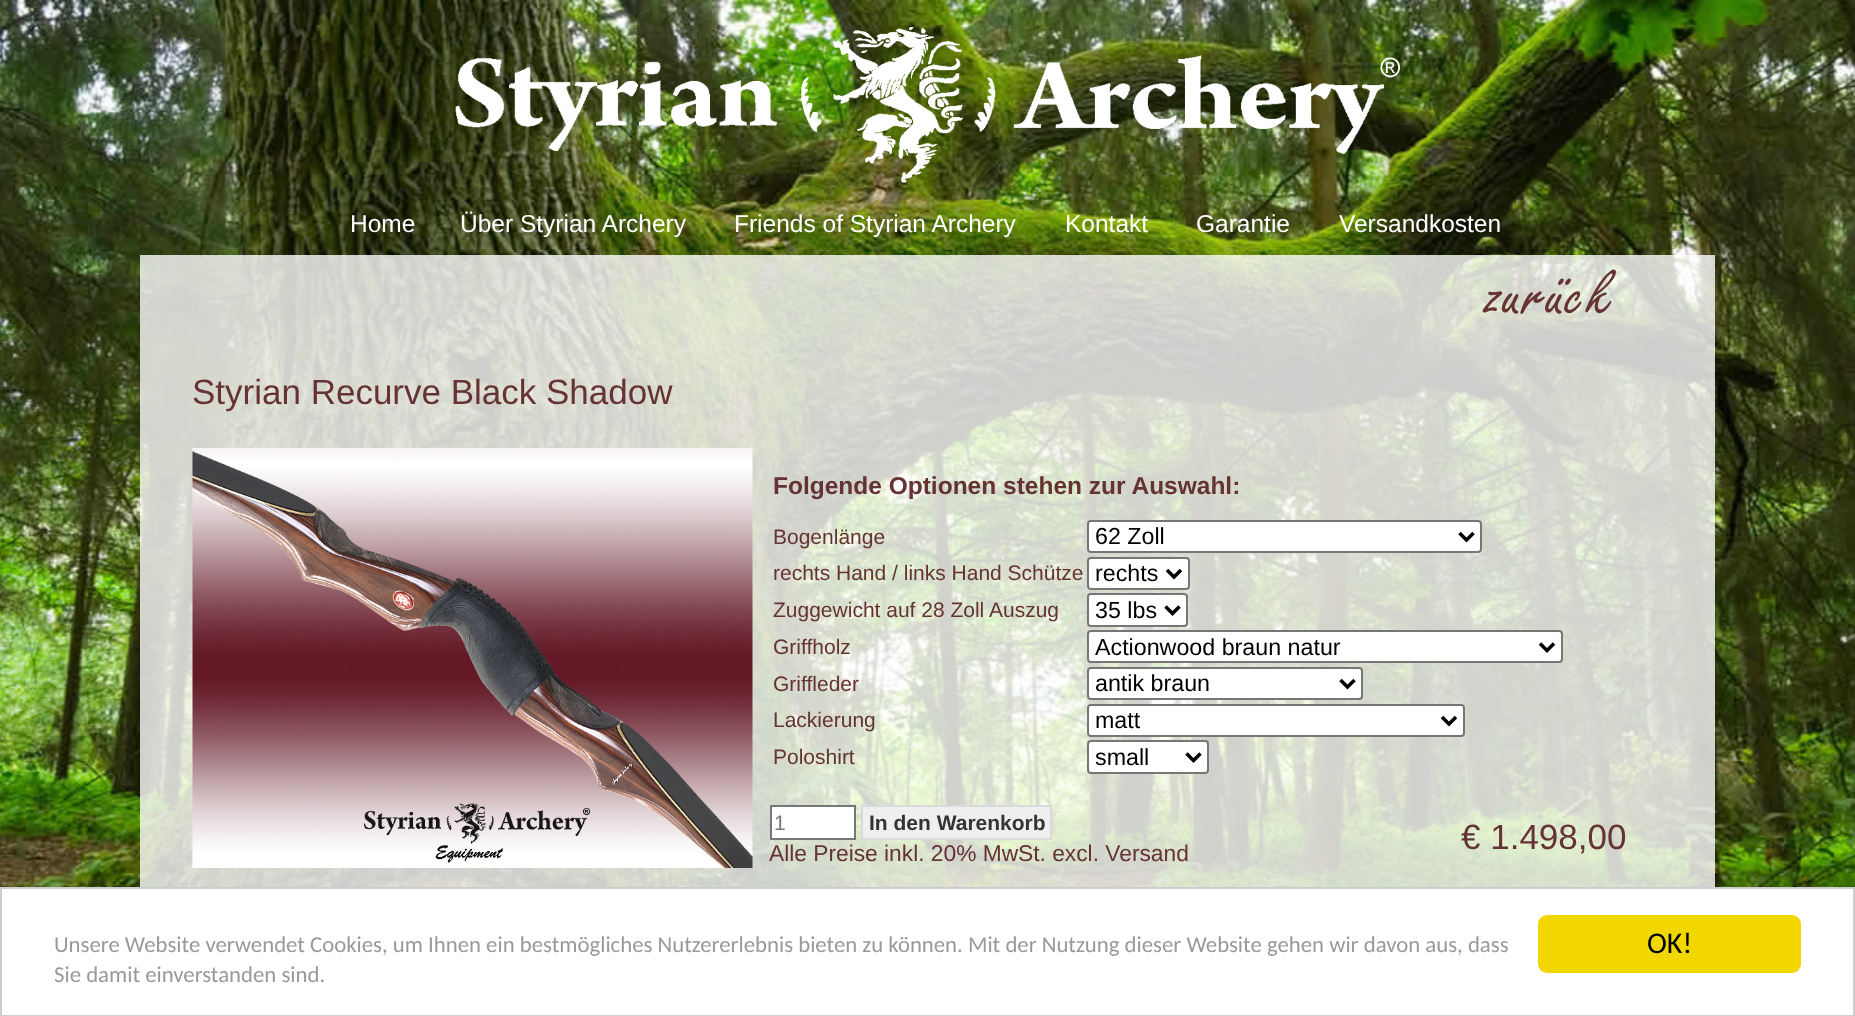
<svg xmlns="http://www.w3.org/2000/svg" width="1855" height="1016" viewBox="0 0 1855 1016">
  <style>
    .t1 { font: 24.5px Liberation Sans; fill: #fff; }
    .t2 { font: 70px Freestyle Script; letter-spacing: 1.75px; fill: #633; }
    .t3 { font: 35px Liberation Sans; fill: #633; }
    .t4 { font: bold 24.5px Liberation Sans; fill: #633; }
    .t5 { font: 21px Liberation Sans; fill: #633; }
    .t6 { font: 23.25px Liberation Sans; fill: #000; }
    .t7 { font: 21px Liberation Sans; fill: #777; }
    .t8 { font: bold 21px Liberation Sans; fill: #333; }
    .t9 { font: 22.75px Liberation Sans; fill: #633; }
    .t10 { font: 22.75px Carlito; fill: #999; }
    .t11 { font: 30px Carlito; fill: #000; }
  </style>
  <rect width="100%" height="100%" fill="#fff"/>
  <image x="0" y="0" width="1855" height="887" href="images/1.png"/>
  <image x="455" y="27" width="945" height="156" href="images/2.png"/>
  <text x="350" y="232" class="t1">Home</text>
  <text x="460" y="232" class="t1">Über Styrian Archery</text>
  <text x="734" y="232" class="t1">Friends of Styrian Archery</text>
  <text x="1065" y="232" class="t1">Kontakt</text>
  <text x="1196" y="232" class="t1">Garantie</text>
  <text x="1339" y="232" class="t1">Versandkosten</text>
  <rect x="140" y="255" width="1575" height="632" fill="#ffffffcc"/>
  <text x="1487" y="315" class="t2">zurück</text>
  <text x="192" y="404" class="t3">Styrian Recurve Black Shadow</text>
  <image x="192" y="448" width="561" height="420" href="images/3.png"/>
  <text x="773" y="494" class="t4">Folgende Optionen stehen zur Auswahl:</text>
  <text x="773" y="544" class="t5">Bogenlänge</text>
  <rect x="1088" y="521" width="393" height="31" rx="3" fill="#fff" stroke="#767676" stroke-width="2"/>
  <path d="M1459.5 533L1466.5 540L1473.5 533" fill="none" stroke="#000" stroke-width="3.5"/>
  <text x="1095" y="544" class="t6">62 Zoll</text>
  <text x="773" y="580" class="t5">rechts Hand / links Hand Schütze</text>
  <rect x="1088" y="558" width="101" height="31" rx="3" fill="#fff" stroke="#767676" stroke-width="2"/>
  <path d="M1167 570L1174 577L1181 570" fill="none" stroke="#000" stroke-width="3.5"/>
  <text x="1095" y="581" class="t6">rechts</text>
  <text x="773" y="617" class="t5">Zuggewicht auf 28 Zoll Auszug</text>
  <rect x="1088" y="594" width="99" height="32" rx="3" fill="#fff" stroke="#767676" stroke-width="2"/>
  <path d="M1165.5 606.5L1172.5 613.5L1179.5 606.5" fill="none" stroke="#000" stroke-width="3.5"/>
  <text x="1095" y="618" class="t6">35 lbs</text>
  <text x="773" y="654" class="t5">Griffholz</text>
  <rect x="1088" y="631" width="474" height="31" rx="3" fill="#fff" stroke="#767676" stroke-width="2"/>
  <path d="M1540 643.5L1547 650.5L1554 643.5" fill="none" stroke="#000" stroke-width="3.5"/>
  <text x="1095" y="655" class="t6">Actionwood braun natur</text>
  <text x="773" y="691" class="t5">Griffleder</text>
  <rect x="1088" y="668" width="274" height="31" rx="3" fill="#fff" stroke="#767676" stroke-width="2"/>
  <path d="M1340.5 680L1347.5 687L1354.5 680" fill="none" stroke="#000" stroke-width="3.5"/>
  <text x="1095" y="691" class="t6">antik braun</text>
  <text x="773" y="727" class="t5">Lackierung</text>
  <rect x="1088" y="705" width="376" height="31" rx="3" fill="#fff" stroke="#767676" stroke-width="2"/>
  <path d="M1442 717L1449 724L1456 717" fill="none" stroke="#000" stroke-width="3.5"/>
  <text x="1095" y="728" class="t6">matt</text>
  <text x="773" y="764" class="t5">Poloshirt</text>
  <rect x="1088" y="741" width="120" height="32" rx="3" fill="#fff" stroke="#767676" stroke-width="2"/>
  <path d="M1186.5 753.5L1193.5 760.5L1200.5 753.5" fill="none" stroke="#000" stroke-width="3.5"/>
  <text x="1095" y="765" class="t6">small</text>
  <rect x="771" y="806" width="84" height="33" fill="#fff" stroke="#777" stroke-width="2"/>
  <text x="774" y="830" class="t7">1</text>
  <rect x="862" y="806" width="189" height="33" fill="#efefef" stroke="#dadada" stroke-width="2"/>
  <text x="869" y="830" class="t8">In den Warenkorb</text>
  <text x="769" y="861" class="t9">Alle Preise inkl. 20% MwSt. excl. Versand</text>
  <text x="1461" y="849" class="t3">€ 1.498,00</text>
  <rect x="1" y="888" width="1853" height="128" fill="none" stroke="#ccc" stroke-width="2"/>
  <text x="54" y="952" class="t10">Unsere Website verwendet Cookies, um Ihnen ein bestmögliches Nutzererlebnis bieten zu können. Mit der Nutzung dieser Website gehen wir davon aus, dass</text>
  <text x="54" y="982" class="t10">Sie damit einverstanden sind.</text>
  <rect x="1538" y="915" width="263" height="58" rx="9" fill="#f1d600"/>
  <text x="1647" y="953" class="t11">OK!</text>
</svg>
